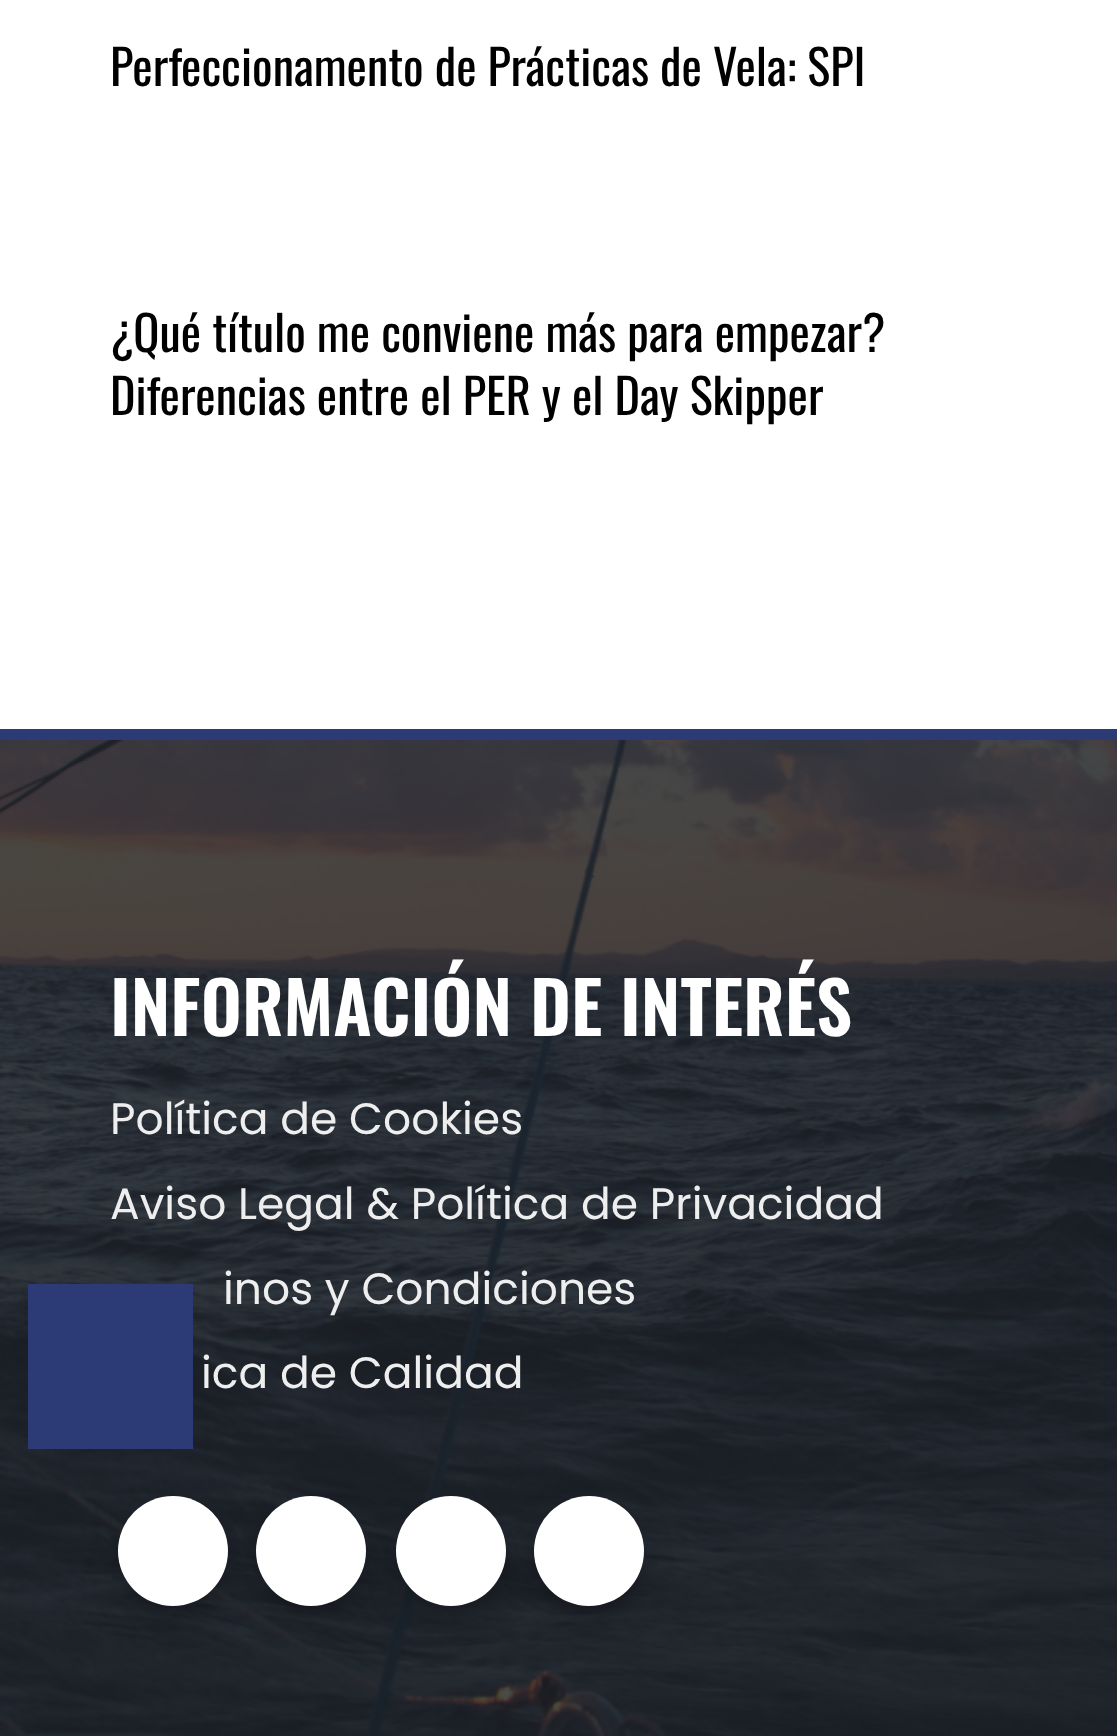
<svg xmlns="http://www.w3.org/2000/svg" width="1117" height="1736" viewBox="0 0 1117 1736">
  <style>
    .t1 { font: 48.4px Oswald; fill: #000; }
    .t2 { font: 600 71.5px Oswald; fill: #fff; }
    .t3 { font: 44px Poppins; fill: #eee; }
  </style>
  <rect width="100%" height="100%" fill="#fff"/>
  <image x="0" y="740" width="1117" height="996" href="images/1.png"/>
  <rect x="28" y="1284" width="165" height="165" fill="#2c3b76"/>
  <text x="110" y="86" class="t1">Perfeccionamento de Prácticas de Vela: SPI</text>
  <text x="110" y="352" class="t1">¿Qué título me conviene más para empezar?</text>
  <text x="110" y="415" class="t1">Diferencias entre el PER y el Day Skipper</text>
  <rect x="0" y="729" width="1117" height="11" fill="#2c3b76"/>
  <text x="110" y="1036" class="t2">INFORMACIÓN DE INTERÉS</text>
  <text x="110" y="1134" class="t3">Política de Cookies</text>
  <text x="110" y="1219" class="t3">Aviso Legal &amp; Política de Privacidad</text>
  <text x="223" y="1304" class="t3">inos y Condiciones</text>
  <text x="201" y="1388" class="t3">ica de Calidad</text>
  <rect x="132" y="1524" width="83" height="82" rx="41" fill="#00000080" filter="blur(20.5px)"/>
  <circle cx="173" cy="1551" r="55" fill="#fff"/>
  <rect x="270" y="1524" width="82" height="82" rx="41" fill="#00000080" filter="blur(20.5px)"/>
  <circle cx="311" cy="1551" r="55" fill="#fff"/>
  <rect x="410" y="1524" width="82" height="82" rx="41" fill="#00000080" filter="blur(20.5px)"/>
  <circle cx="451" cy="1551" r="55" fill="#fff"/>
  <rect x="547" y="1524" width="83" height="82" rx="41" fill="#00000080" filter="blur(20.5px)"/>
  <circle cx="589" cy="1551" r="55" fill="#fff"/>
</svg>
